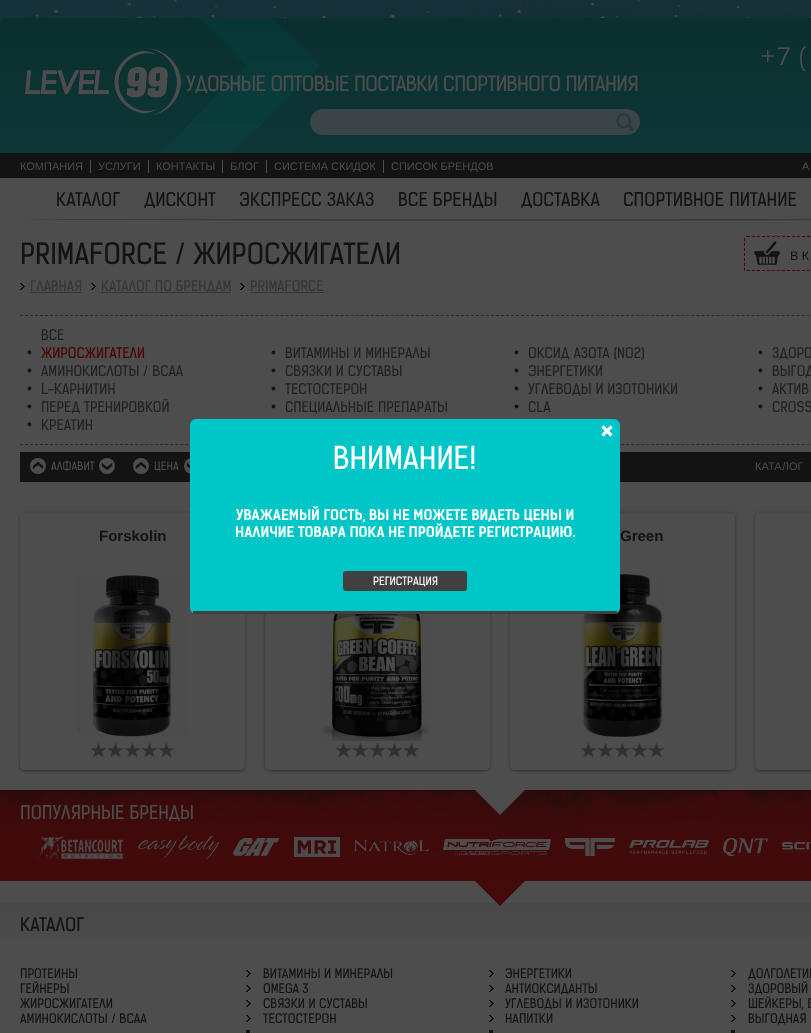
<svg xmlns="http://www.w3.org/2000/svg" width="811" height="1033" viewBox="0 0 811 1033">
  <style>
    .t1 { font: 20.25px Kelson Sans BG; letter-spacing: -0.65px; fill: #4d4d4d; }
    .t2 { font: 300 25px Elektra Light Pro; fill: #4d4d4d; }
    .t3 { font: 11px Liberation Sans; fill: #4d4d4d; }
    .t4 { font: 18px Kelson Sans BG; fill: #131313; }
    .t5 { font: 28px Kelson Sans BG; fill: #131313; }
    .t6 { font: 12.5px Liberation Sans; fill: #131313; }
    .t7 { font: 14px Kelson Sans BG; fill: #363636; }
    .t8 { font: 14px Kelson Sans BG; fill: #222; }
    .t9 { font: 14px Liberation Sans; fill: #131313; }
    .t10 { font: 14px Kelson Sans BG; fill: #4d0000; }
    .t11 { font: 11px Kelson Sans BG; fill: #4d4d4d; }
    .t12 { font: bold 15px Liberation Sans; fill: #131313; }
    .t13 { font: 18px Kelson Sans BG; fill: #4d4d4d; }
    .t14 { font: 12.5px Kelson Sans BG; fill: #131313; }
    .t15 { font: 30px Kelson Sans BG; fill: #fff; }
    .t16 { font: bold 14px Kelson Sans BG; fill: #fff; }
    .t17 { font: 11px Kelson Sans BG; fill: #fff; }
  </style>
  <defs>
    <clipPath id="clip1"><path d="M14 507H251V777H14ZM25 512H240C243 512 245 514 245 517V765C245 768 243 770 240 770H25C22 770 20 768 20 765V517C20 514 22 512 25 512Z" clip-rule="evenodd"/></clipPath>
    <clipPath id="clip2"><path d="M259 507H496V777H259ZM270 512H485C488 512 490 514 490 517V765C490 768 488 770 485 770H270C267 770 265 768 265 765V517C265 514 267 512 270 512Z" clip-rule="evenodd"/></clipPath>
    <clipPath id="clip3"><path d="M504 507H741V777H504ZM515 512H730C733 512 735 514 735 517V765C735 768 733 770 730 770H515C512 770 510 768 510 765V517C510 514 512 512 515 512Z" clip-rule="evenodd"/></clipPath>
    <clipPath id="clip4"><path d="M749 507H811V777H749ZM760 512H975C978 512 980 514 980 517V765C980 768 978 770 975 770H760C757 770 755 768 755 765V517C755 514 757 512 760 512Z" clip-rule="evenodd"/></clipPath>
    <linearGradient id="g1" gradientUnits="userSpaceOnUse" x1="500" y1="903" x2="500" y2="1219"><stop offset="0" stop-color="#484848"/><stop offset="0.17" stop-color="#4c4c4c"/><stop offset="0.51" stop-color="#4d4d4d"/><stop offset="0.81" stop-color="#4c4c4c"/><stop offset="1" stop-color="#444"/></linearGradient>
  </defs>
  <rect width="100%" height="100%" fill="#4d4d4d"/>
  <image x="0" y="0" width="811" height="24" href="images/1.png"/>
  <image x="0" y="18" width="811" height="135" href="images/2.png"/>
  <image x="25" y="48" width="156" height="68" href="images/3.png"/>
  <text x="186" y="91" class="t1">УДОБНЫЕ ОПТОВЫЕ ПОСТАВКИ СПОРТИВНОГО ПИТАНИЯ</text>
  <rect x="310" y="109" width="330" height="26" rx="13" fill="#3b4446"/>
  <image x="616" y="113" width="18" height="18" href="images/4.png"/>
  <text x="760" y="65" class="t2">+7 (</text>
  <rect x="0" y="153" width="811" height="25" fill="#131313"/>
  <text x="20" y="170" class="t3">КОМПАНИЯ</text>
  <rect x="90" y="160" width="1" height="13" fill="#4d4d4d"/>
  <text x="98" y="170" class="t3">УСЛУГИ</text>
  <rect x="148" y="160" width="1" height="13" fill="#4d4d4d"/>
  <text x="156" y="170" class="t3">КОНТАКТЫ</text>
  <rect x="222" y="160" width="1" height="13" fill="#4d4d4d"/>
  <text x="230" y="170" class="t3">БЛОГ</text>
  <rect x="266" y="160" width="1" height="13" fill="#4d4d4d"/>
  <text x="274" y="170" class="t3">СИСТЕМА СКИДОК</text>
  <rect x="383" y="160" width="1" height="13" fill="#4d4d4d"/>
  <text x="391" y="170" class="t3">СПИСОК БРЕНДОВ</text>
  <text x="802" y="170" class="t3">А</text>
  <image x="0" y="219" width="811" height="2" href="images/5.png"/>
  <text x="56" y="206" class="t4">КАТАЛОГ</text>
  <text x="144" y="206" class="t4">ДИСКОНТ</text>
  <text x="239" y="206" class="t4">ЭКСПРЕСС ЗАКАЗ</text>
  <text x="398" y="206" class="t4">ВСЕ БРЕНДЫ</text>
  <text x="521" y="206" class="t4">ДОСТАВКА</text>
  <text x="623" y="206" class="t4">СПОРТИВНОЕ ПИТАНИЕ</text>
  <text x="20" y="264" class="t5">PRIMAFORCE / ЖИРОСЖИГАТЕЛИ</text>
  <path d="M747 236.5H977C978.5 236.5 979.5 237.5 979.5 239V270.5H744.5V239C744.5 237.5 745.5 236.5 747 236.5Z" fill="none" stroke="#4d0000" stroke-dasharray="3 2"/>
  <image x="754" y="241" width="26" height="24" href="images/6.png"/>
  <text x="790" y="260" class="t6">В К</text>
  <image x="20" y="283" width="5" height="7" href="images/7.png"/>
  <text x="30" y="291" class="t7">ГЛАВНАЯ</text>
  <rect x="30" y="292" width="52" height="1" fill="#363636"/>
  <image x="91" y="283" width="5" height="7" href="images/7.png"/>
  <rect x="101" y="292" width="130" height="1" fill="#363636"/>
  <text x="101" y="291" class="t7">КАТАЛОГ ПО БРЕНДАМ</text>
  <image x="240" y="283" width="5" height="7" href="images/7.png"/>
  <text x="250" y="291" class="t7">PRIMAFORCE</text>
  <rect x="250" y="292" width="74" height="1" fill="#363636"/>
  <path d="M20 315.5H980" fill="none" stroke="#2b2b2b" stroke-dasharray="3 2.01"/>
  <path d="M20 444.5H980" fill="none" stroke="#2b2b2b" stroke-dasharray="3 2.01"/>
  <text x="41" y="340" class="t8">ВСЕ</text>
  <text x="27" y="357" class="t9">•</text>
  <text x="41" y="358" class="t10">ЖИРОСЖИГАТЕЛИ</text>
  <text x="271" y="357" class="t9">•</text>
  <text x="285" y="358" class="t8">ВИТАМИНЫ И МИНЕРАЛЫ</text>
  <text x="514" y="357" class="t9">•</text>
  <text x="528" y="358" class="t8">ОКСИД АЗОТА (NO2)</text>
  <text x="758" y="357" class="t9">•</text>
  <text x="772" y="358" class="t8">ЗДОРО</text>
  <text x="27" y="375" class="t9">•</text>
  <text x="41" y="376" class="t8">АМИНОКИСЛОТЫ / BCAA</text>
  <text x="271" y="375" class="t9">•</text>
  <text x="285" y="376" class="t8">СВЯЗКИ И СУСТАВЫ</text>
  <text x="514" y="375" class="t9">•</text>
  <text x="528" y="376" class="t8">ЭНЕРГЕТИКИ</text>
  <text x="758" y="375" class="t9">•</text>
  <text x="772" y="376" class="t8">ВЫГОД</text>
  <text x="27" y="393" class="t9">•</text>
  <text x="41" y="394" class="t8">L-КАРНИТИН</text>
  <text x="271" y="393" class="t9">•</text>
  <text x="285" y="394" class="t8">ТЕСТОСТЕРОН</text>
  <text x="514" y="393" class="t9">•</text>
  <text x="528" y="394" class="t8">УГЛЕВОДЫ И ИЗОТОНИКИ</text>
  <text x="758" y="393" class="t9">•</text>
  <text x="772" y="394" class="t8">АКТИВ</text>
  <text x="27" y="411" class="t9">•</text>
  <text x="41" y="412" class="t8">ПЕРЕД ТРЕНИРОВКОЙ</text>
  <text x="271" y="411" class="t9">•</text>
  <text x="285" y="412" class="t8">СПЕЦИАЛЬНЫЕ ПРЕПАРАТЫ</text>
  <text x="514" y="411" class="t9">•</text>
  <text x="528" y="412" class="t8">CLA</text>
  <text x="758" y="411" class="t9">•</text>
  <text x="772" y="412" class="t8">CROSS</text>
  <text x="27" y="429" class="t9">•</text>
  <text x="41" y="430" class="t8">КРЕАТИН</text>
  <rect x="20" y="452" width="791" height="30" fill="#131313"/>
  <circle cx="38" cy="466" r="8" fill="#4d4d4d"/>
  <image x="32" y="462" width="12" height="7" href="images/8.png"/>
  <text x="51" y="470" class="t11">АЛФАВИТ</text>
  <circle cx="107" cy="466" r="8" fill="#4d4d4d"/>
  <image x="101" y="463" width="12" height="7" href="images/9.png"/>
  <circle cx="141" cy="466" r="8" fill="#4d4d4d"/>
  <image x="135" y="462" width="12" height="7" href="images/8.png"/>
  <text x="154" y="470" class="t11">ЦЕНА</text>
  <circle cx="192" cy="466" r="8" fill="#4d4d4d"/>
  <image x="186" y="463" width="4" height="6" href="images/10.png"/>
  <text x="755" y="470" class="t3">КАТАЛОГ</text>
  <g clip-path="url(#clip1)">
    <rect x="20" y="513" width="225" height="258" rx="5" fill="#00000066" filter="blur(1.5px)"/>
  </g>
  <rect x="23" y="512" width="167" height="1" fill="#474747"/>
  <text x="99" y="541" class="t12">Forskolin</text>
  <image x="76" y="575" width="111" height="162" href="images/11.png"/>
  <image x="90" y="742" width="85" height="16" href="images/12.png"/>
  <g clip-path="url(#clip2)">
    <rect x="265" y="513" width="225" height="258" rx="5" fill="#00000066" filter="blur(1.5px)"/>
  </g>
  <image x="321" y="614" width="109" height="127" href="images/13.png"/>
  <image x="335" y="742" width="85" height="16" href="images/12.png"/>
  <g clip-path="url(#clip3)">
    <rect x="510" y="513" width="225" height="258" rx="5" fill="#00000066" filter="blur(1.5px)"/>
  </g>
  <rect x="620" y="512" width="113" height="1" fill="#474747"/>
  <text x="620" y="541" class="t12">Green</text>
  <image x="582" y="574" width="82" height="163" href="images/14.png"/>
  <image x="580" y="742" width="85" height="16" href="images/12.png"/>
  <g clip-path="url(#clip4)">
    <rect x="755" y="513" width="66" height="258" rx="5" fill="#00000066" filter="blur(1.5px)"/>
  </g>
  <rect x="758" y="512" width="53" height="1" fill="#474747"/>
  <image x="0" y="790" width="811" height="91" href="images/15.png"/>
  <text x="20" y="819" class="t13">ПОПУЛЯРНЫЕ БРЕНДЫ</text>
  <path d="M475 790H525L500 815Z" fill="#4d4d4d"/>
  <image x="36" y="834" width="88" height="25" href="images/16.png"/>
  <image x="138" y="835" width="81" height="24" href="images/17.png"/>
  <image x="233" y="838" width="47" height="18" href="images/18.png"/>
  <image x="294" y="837" width="46" height="20" href="images/19.png"/>
  <image x="354" y="840" width="75" height="15" href="images/20.png"/>
  <image x="443" y="839" width="108" height="16" href="images/21.png"/>
  <image x="565" y="838" width="50" height="18" href="images/22.png"/>
  <image x="629" y="840" width="80" height="14" href="images/23.png"/>
  <image x="723" y="838" width="45" height="18" href="images/24.png"/>
  <image x="782" y="842" width="29" height="11" href="images/25.png"/>
  <rect x="0" y="903" width="811" height="34" fill="url(#g1)"/>
  <path d="M475 881H525L500 906Z" fill="#430b0c"/>
  <text x="20" y="931" class="t4">КАТАЛОГ</text>
  <text x="20" y="978" class="t14">ПРОТЕИНЫ</text>
  <image x="246" y="970" width="5" height="7" href="images/7.png"/>
  <text x="263" y="978" class="t14">ВИТАМИНЫ И МИНЕРАЛЫ</text>
  <image x="489" y="970" width="5" height="7" href="images/7.png"/>
  <text x="505" y="978" class="t14">ЭНЕРГЕТИКИ</text>
  <image x="731" y="970" width="5" height="7" href="images/7.png"/>
  <text x="748" y="978" class="t14">ДОЛГОЛЕТИЕ</text>
  <text x="20" y="993" class="t14">ГЕЙНЕРЫ</text>
  <image x="246" y="985" width="5" height="7" href="images/7.png"/>
  <text x="263" y="993" class="t14">OMEGA 3</text>
  <image x="489" y="985" width="5" height="7" href="images/7.png"/>
  <text x="505" y="993" class="t14">АНТИОКСИДАНТЫ</text>
  <image x="731" y="985" width="5" height="7" href="images/7.png"/>
  <text x="748" y="993" class="t14">ЗДОРОВЫЙ</text>
  <text x="20" y="1008" class="t14">ЖИРОСЖИГАТЕЛИ</text>
  <image x="246" y="1000" width="5" height="7" href="images/7.png"/>
  <text x="263" y="1008" class="t14">СВЯЗКИ И СУСТАВЫ</text>
  <image x="489" y="1000" width="5" height="7" href="images/7.png"/>
  <text x="505" y="1008" class="t14">УГЛЕВОДЫ И ИЗОТОНИКИ</text>
  <image x="731" y="1000" width="5" height="7" href="images/7.png"/>
  <text x="748" y="1008" class="t14">ШЕЙКЕРЫ, Б</text>
  <text x="20" y="1023" class="t14">АМИНОКИСЛОТЫ / BCAA</text>
  <image x="246" y="1015" width="5" height="7" href="images/7.png"/>
  <text x="263" y="1023" class="t14">ТЕСТОСТЕРОН</text>
  <image x="489" y="1015" width="5" height="7" href="images/7.png"/>
  <text x="505" y="1023" class="t14">НАПИТКИ</text>
  <image x="731" y="1015" width="5" height="7" href="images/7.png"/>
  <text x="748" y="1023" class="t14">ВЫГОДНАЯ</text>
  <rect x="246" y="1030" width="4" height="3" fill="#131313"/>
  <rect x="489" y="1030" width="4" height="3" fill="#131313"/>
  <rect x="731" y="1030" width="4" height="3" fill="#131313"/>
  <rect x="190" y="419" width="430" height="195" rx="6" fill="#00c6c7"/>
  <image x="601" y="425" width="12" height="12" href="images/26.png"/>
  <rect x="193" y="611" width="424" height="3" fill="#404040"/>
  <text x="333" y="469" class="t15">ВНИМАНИЕ!</text>
  <text x="236" y="520" class="t16">УВАЖАЕМЫЙ ГОСТЬ, ВЫ НЕ МОЖЕТЕ ВИДЕТЬ ЦЕНЫ И</text>
  <text x="235" y="537" class="t16">НАЛИЧИЕ ТОВАРА ПОКА НЕ ПРОЙДЕТЕ РЕГИСТРАЦИЮ.</text>
  <rect x="343" y="571" width="124" height="20" rx="3" fill="#404040"/>
  <text x="373" y="585" class="t17">РЕГИСТРАЦИЯ</text>
</svg>
